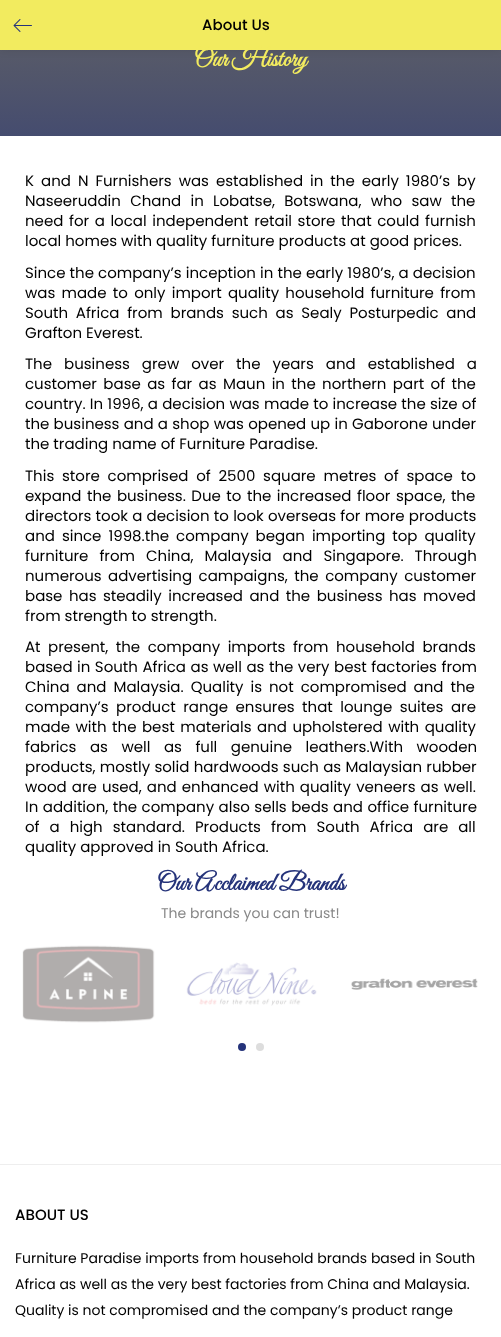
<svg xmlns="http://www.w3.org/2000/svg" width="501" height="1337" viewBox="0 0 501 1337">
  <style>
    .t1 { font: 500 15px Poppins; fill: #000; }
    .t2 { font: bold 25px Great Vibes; fill: #f2eb5f; }
    .t3 { font: 15px Poppins; fill: #000; }
    .t4 { font: bold 25px Great Vibes; fill: #25337a; }
    .t5 { font: 14px Poppins; fill: #888; }
    .t6 { font: 14px Poppins; fill: #000; }
  </style>
  <defs>
    <linearGradient id="g1" gradientUnits="userSpaceOnUse" x1="251" y1="-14" x2="251" y2="136"><stop offset="0" stop-color="#646464"/><stop offset="1" stop-color="#454c6f"/></linearGradient>
  </defs>
  <rect width="100%" height="100%" fill="#fff"/>
  <rect x="0" y="50" width="501" height="86" fill="url(#g1)"/>
  <rect x="0" y="0" width="501" height="50" fill="#0000001a" filter="blur(4px)"/>
  <rect x="0" y="0" width="501" height="50" fill="#f2eb5f"/>
  <image x="13" y="19" width="19" height="13" href="images/1.png"/>
  <text x="202" y="30" class="t1">About Us</text>
  <text x="194" y="66" class="t2">Our History</text>
  <text x="25" y="186" word-spacing="3" class="t3">K and N Furnishers was established in the early 1980’s by</text>
  <text x="25" y="206" word-spacing="5.25" class="t3">Naseeruddin Chand in Lobatse, Botswana, who saw the</text>
  <text x="25" y="226" word-spacing="1.6" class="t3">need for a local independent retail store that could furnish</text>
  <text x="25" y="246" class="t3">local homes with quality furniture products at good prices.</text>
  <text x="25" y="278" word-spacing="0.1" class="t3">Since the company’s inception in the early 1980’s, a decision</text>
  <text x="25" y="298" word-spacing="2.25" class="t3">was made to only import quality household furniture from</text>
  <text x="25" y="318" word-spacing="3.75" class="t3">South Africa from brands such as Sealy Posturpedic and</text>
  <text x="25" y="338" class="t3">Grafton Everest.</text>
  <text x="25" y="369" word-spacing="8" class="t3">The business grew over the years and established a</text>
  <text x="25" y="389" word-spacing="2.4" class="t3">customer base as far as Maun in the northern part of the</text>
  <text x="25" y="409" word-spacing="0.25" class="t3">country. In 1996, a decision was made to increase the size of</text>
  <text x="25" y="429" word-spacing="0.25" class="t3">the business and a shop was opened up in Gaborone under</text>
  <text x="25" y="449" class="t3">the trading name of Furniture Paradise.</text>
  <text x="25" y="481" word-spacing="3.75" class="t3">This store comprised of 2500 square metres of space to</text>
  <text x="25" y="501" word-spacing="1.5" class="t3">expand the business. Due to the increased floor space, the</text>
  <text x="25" y="521" word-spacing="0.25" class="t3">directors took a decision to look overseas for more products</text>
  <text x="25" y="541" word-spacing="3" class="t3">and since 1998.the company began importing top quality</text>
  <text x="25" y="561" word-spacing="7" class="t3">furniture from China, Malaysia and Singapore. Through</text>
  <text x="25" y="581" word-spacing="2.5" class="t3">numerous advertising campaigns, the company customer</text>
  <text x="25" y="601" word-spacing="2.5" class="t3">base has steadily increased and the business has moved</text>
  <text x="25" y="621" class="t3">from strength to strength.</text>
  <text x="25" y="652" word-spacing="3.5" class="t3">At present, the company imports from household brands</text>
  <text x="25" y="672" word-spacing="0.5" class="t3">based in South Africa as well as the very best factories from</text>
  <text x="25" y="692" word-spacing="3" class="t3">China and Malaysia. Quality is not compromised and the</text>
  <text x="25" y="712" word-spacing="3.5" class="t3">company’s product range ensures that lounge suites are</text>
  <text x="25" y="732" word-spacing="1.5" class="t3">made with the best materials and upholstered with quality</text>
  <text x="25" y="752" word-spacing="9.5" class="t3">fabrics as well as full genuine leathers.With wooden</text>
  <text x="25" y="772" word-spacing="0.25" class="t3">products, mostly solid hardwoods such as Malaysian rubber</text>
  <text x="25" y="792" word-spacing="1.1" class="t3">wood are used, and enhanced with quality veneers as well.</text>
  <text x="25" y="812" word-spacing="0.5" class="t3">In addition, the company also sells beds and office furniture</text>
  <text x="25" y="832" word-spacing="6" class="t3">of a high standard. Products from South Africa are all</text>
  <text x="25" y="852" class="t3">quality approved in South Africa.</text>
  <text x="157" y="890" class="t4">Our Acclaimed Brands</text>
  <text x="161" y="918" class="t5">The brands you can trust!</text>
  <image x="22" y="945" width="133" height="78" href="images/2.png"/>
  <image x="186" y="962" width="131" height="44" href="images/3.png"/>
  <image x="351" y="978" width="127" height="12" href="images/4.png"/>
  <circle cx="242" cy="1047" r="4" fill="#25337a"/>
  <circle cx="260" cy="1047" r="4" fill="#ddd"/>
  <rect x="0" y="1164" width="501" height="1" fill="#eee"/>
  <text x="15" y="1220" class="t1">ABOUT US</text>
  <text x="15" y="1263" class="t6">Furniture Paradise imports from household brands based in South</text>
  <text x="15" y="1289" class="t6">Africa as well as the very best factories from China and Malaysia.</text>
  <text x="15" y="1315" class="t6">Quality is not compromised and the company’s product range</text>
</svg>
